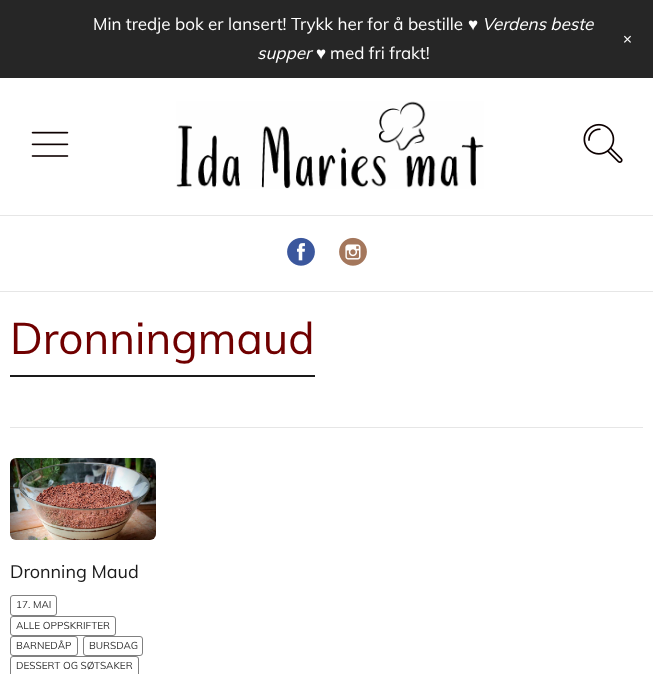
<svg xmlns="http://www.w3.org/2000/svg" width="653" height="674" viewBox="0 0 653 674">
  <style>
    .t1 { font: 17px Muli; fill: #fff; }
    .t2 { font: italic 17px Liberation Serif; fill: #fff; }
    .t3 { font: italic 17px Muli; fill: #fff; }
    .t4 { font: 18px Muli; fill: #fff; }
    .t5 { font: 44px Muli; fill: #700000; }
    .t6 { font: 18px Muli; fill: #1a1a1a; }
    .t7 { font: 10px Muli; fill: #333; }
  </style>
  <rect width="100%" height="100%" fill="#fff"/>
  <rect x="0" y="0" width="653" height="78" fill="#262626"/>
  <text x="93" y="30" class="t1">Min tredje bok er lansert! Trykk her for å bestille</text>
  <text x="468" y="30" class="t2">♥</text>
  <text x="482" y="30" class="t3">Verdens beste</text>
  <text x="257" y="59" class="t3">supper</text>
  <text x="316" y="59" class="t2">♥</text>
  <text x="330" y="59" class="t1">med fri frakt!</text>
  <text x="620" y="39" transform="rotate(45 620 39)" class="t4">+</text>
  <image x="31" y="131" width="38" height="26" href="images/1.png"/>
  <image x="176" y="101" width="308" height="88" href="images/2.png"/>
  <image x="583" y="123" width="40" height="40" href="images/3.png"/>
  <rect x="0" y="215" width="653" height="1" fill="#e6e6e6"/>
  <rect x="0" y="291" width="653" height="1" fill="#e6e6e6"/>
  <image x="287" y="237" width="28" height="29" href="images/4.png"/>
  <image x="339" y="237" width="28" height="29" href="images/5.png"/>
  <rect x="10" y="427" width="633" height="1" fill="#e6e6e6"/>
  <rect x="10" y="375" width="305" height="2" fill="#1a1a1a"/>
  <text x="10" y="354" class="t5">Dronningmaud</text>
  <image x="10" y="458" width="146" height="82" href="images/6.png"/>
  <text x="10" y="578" class="t6">Dronning Maud</text>
  <rect x="10.5" y="595.5" width="46" height="20" rx="2.5" fill="none" stroke="#808080"/>
  <text x="16" y="608" class="t7">17. MAI</text>
  <rect x="10.5" y="616.5" width="105" height="19" rx="2.5" fill="none" stroke="#808080"/>
  <text x="16" y="629" class="t7">ALLE OPPSKRIFTER</text>
  <rect x="10.5" y="636.5" width="67" height="19" rx="2.5" fill="none" stroke="#808080"/>
  <text x="16" y="649" class="t7">BARNEDÅP</text>
  <rect x="83.5" y="636.5" width="59" height="19" rx="2.5" fill="none" stroke="#808080"/>
  <text x="89" y="649" class="t7">BURSDAG</text>
  <rect x="10.5" y="656.5" width="128" height="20" rx="2.5" fill="none" stroke="#808080"/>
  <text x="16" y="669" class="t7">DESSERT OG SØTSAKER</text>
</svg>
